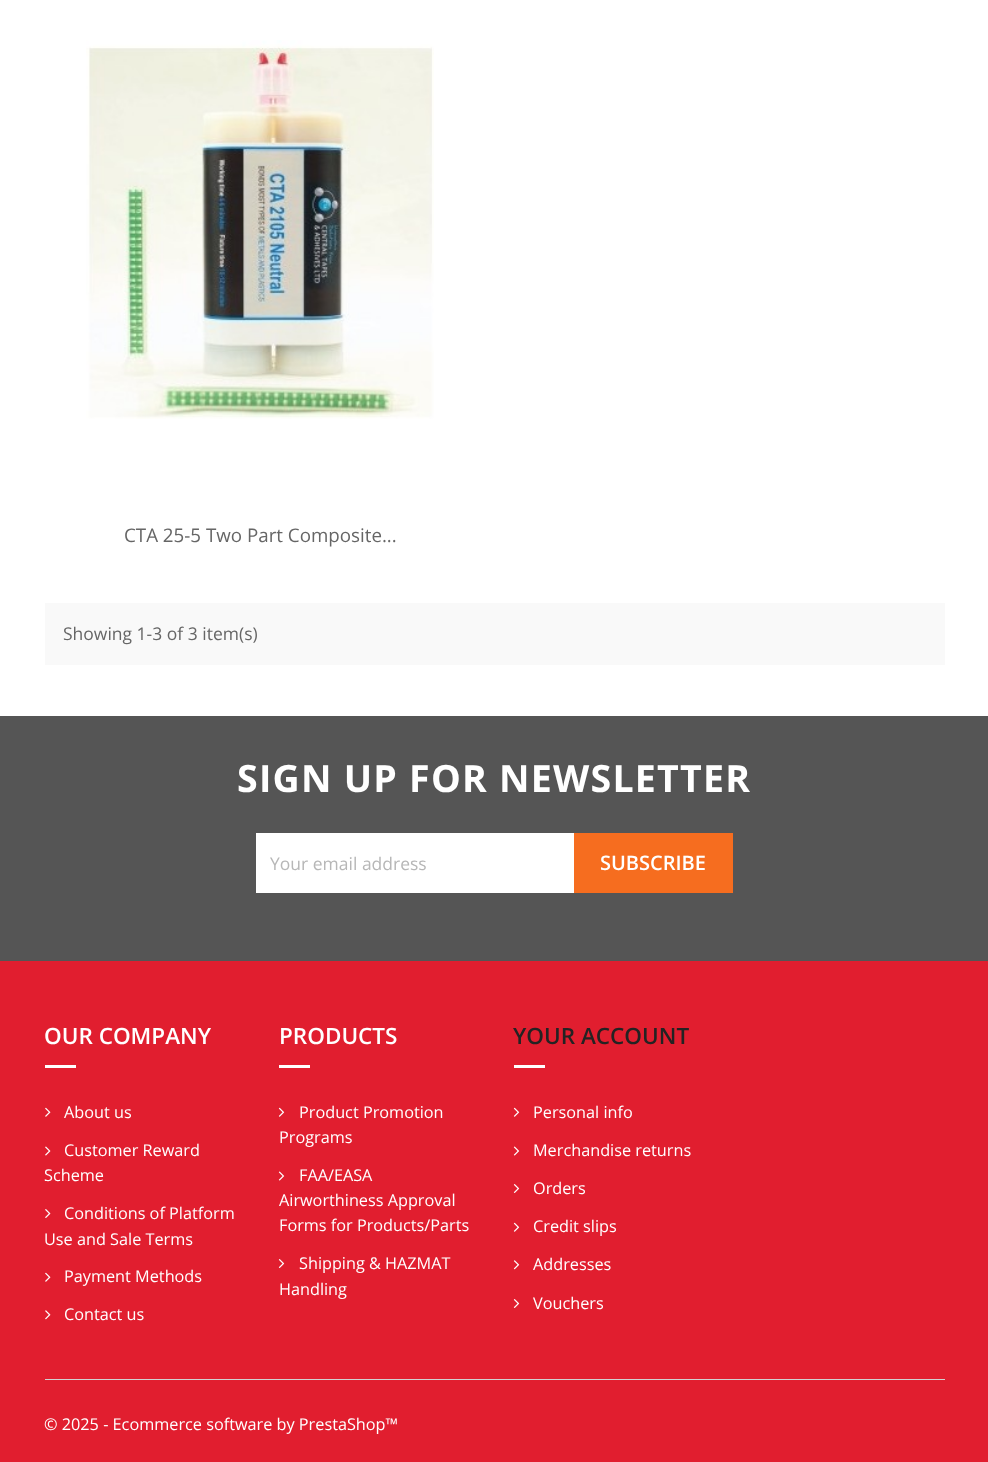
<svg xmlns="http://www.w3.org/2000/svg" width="988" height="1462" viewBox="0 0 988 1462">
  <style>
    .t1 { font: 18.75px Open Sans; fill: #666; }
    .t2 { font: 17.5px Open Sans; fill: #666; }
    .t3 { font: bold 37.5px Open Sans; letter-spacing: 1.25px; fill: #fff; }
    .t4 { font: 17.5px Open Sans; fill: #b7b7b7; }
    .t5 { font: 600 20px Open Sans; fill: #fff; }
    .t6 { font: 600 22.5px Open Sans; fill: #fff; }
    .t7 { font: 16.25px Open Sans; fill: #fff; }
    .t8 { font: 600 22.5px Open Sans; fill: #232323; }
  </style>
  <rect width="100%" height="100%" fill="#fff"/>
  <image x="86" y="40" width="348" height="379" href="images/1.png"/>
  <text x="124" y="542" class="t1">CTA 25-5 Two Part Composite...</text>
  <rect x="45" y="603" width="900" height="62" fill="#f9f9f9"/>
  <text x="63" y="640" class="t2">Showing 1-3 of 3 item(s)</text>
  <rect x="0" y="716" width="988" height="245" fill="#555"/>
  <text x="237" y="792" class="t3">SIGN UP FOR NEWSLETTER</text>
  <rect x="256" y="833" width="318" height="60" fill="#fff"/>
  <text x="270" y="870" class="t4">Your email address</text>
  <rect x="574" y="833" width="159" height="60" fill="#f66d1f"/>
  <text x="600" y="870" class="t5">SUBSCRIBE</text>
  <rect x="0" y="961" width="988" height="501" fill="#e11e2f"/>
  <text x="44" y="1044" class="t6">OUR COMPANY</text>
  <rect x="45" y="1065" width="31" height="3" fill="#fff"/>
  <image x="45" y="1107" width="6" height="10" href="images/2.png"/>
  <text x="64" y="1118" class="t7">About us</text>
  <image x="45" y="1146" width="6" height="10" href="images/3.png"/>
  <text x="64" y="1156" class="t7">Customer Reward</text>
  <text x="44" y="1181" class="t7">Scheme</text>
  <image x="45" y="1209" width="6" height="9" href="images/4.png"/>
  <text x="64" y="1219" class="t7">Conditions of Platform</text>
  <text x="44" y="1245" class="t7">Use and Sale Terms</text>
  <image x="45" y="1272" width="6" height="10" href="images/2.png"/>
  <text x="64" y="1282" class="t7">Payment Methods</text>
  <image x="45" y="1310" width="6" height="10" href="images/5.png"/>
  <text x="64" y="1320" class="t7">Contact us</text>
  <text x="279" y="1044" class="t6">PRODUCTS</text>
  <rect x="279" y="1065" width="31" height="3" fill="#fff"/>
  <image x="278" y="1107" width="7" height="10" href="images/6.png"/>
  <text x="299" y="1118" class="t7">Product Promotion</text>
  <text x="279" y="1143" class="t7">Programs</text>
  <image x="278" y="1171" width="7" height="10" href="images/7.png"/>
  <text x="299" y="1181" class="t7">FAA/EASA</text>
  <text x="279" y="1206" class="t7">Airworthiness Approval</text>
  <text x="279" y="1231" class="t7">Forms for Products/Parts</text>
  <image x="278" y="1259" width="7" height="9" href="images/8.png"/>
  <text x="299" y="1269" class="t7">Shipping &amp; HAZMAT</text>
  <text x="279" y="1295" class="t7">Handling</text>
  <text x="513" y="1044" class="t8">YOUR ACCOUNT</text>
  <rect x="514" y="1065" width="31" height="3" fill="#fff"/>
  <image x="513" y="1107" width="7" height="10" href="images/6.png"/>
  <text x="533" y="1118" class="t7">Personal info</text>
  <image x="513" y="1146" width="7" height="10" href="images/7.png"/>
  <text x="533" y="1156" class="t7">Merchandise returns</text>
  <image x="513" y="1184" width="7" height="9" href="images/8.png"/>
  <text x="533" y="1194" class="t7">Orders</text>
  <image x="513" y="1222" width="7" height="10" href="images/6.png"/>
  <text x="533" y="1232" class="t7">Credit slips</text>
  <image x="513" y="1260" width="7" height="10" href="images/9.png"/>
  <text x="533" y="1270" class="t7">Addresses</text>
  <image x="513" y="1299" width="7" height="9" href="images/8.png"/>
  <text x="533" y="1309" class="t7">Vouchers</text>
  <rect x="45" y="1379" width="900" height="1" fill="#d1d1d1"/>
  <text x="44" y="1430" class="t7">© 2025 - Ecommerce software by PrestaShop™</text>
</svg>
